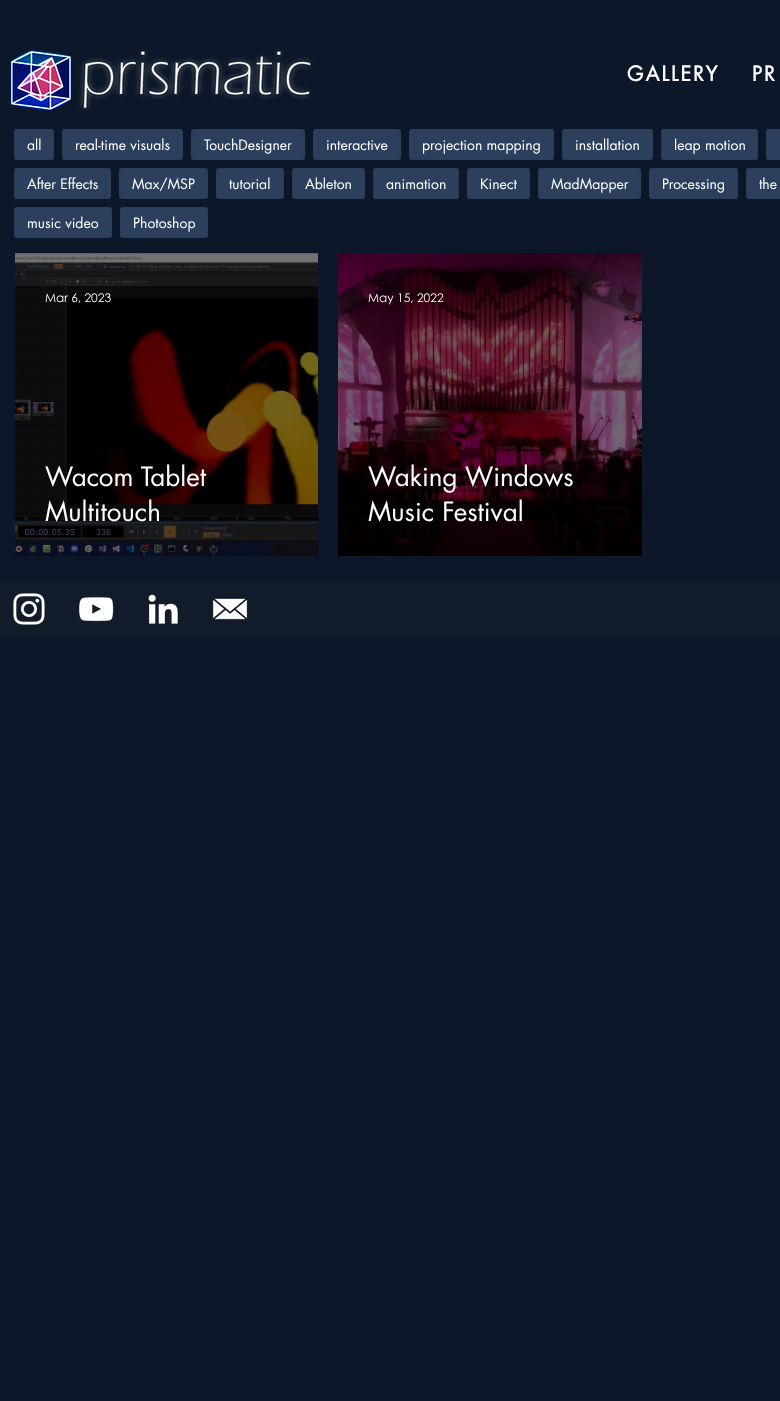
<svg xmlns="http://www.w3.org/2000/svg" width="780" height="1401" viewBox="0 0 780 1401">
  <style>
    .t1 { font: bold 20px futura; letter-spacing: 2px; fill: #fff; }
    .t2 { font: 14px futura; fill: #fff; }
    .t3 { font: 12px Century Gothic; fill: #fff; }
    .t4 { font: 26px futura; fill: #fff; }
  </style>
  <rect width="100%" height="100%" fill="#0c1829"/>
  <image x="10" y="49" width="303" height="63" href="images/1.png"/>
  <text x="627" y="81" class="t1">GALLERY</text>
  <text x="752" y="81" class="t1">PR</text>
  <rect x="14" y="129" width="40" height="31" rx="3" fill="#2c405e"/>
  <rect x="14.5" y="129.5" width="39" height="30" rx="2.5" fill="none" stroke="#2c2c2b33"/>
  <text x="27" y="150" class="t2">all</text>
  <rect x="62" y="129" width="121" height="31" rx="3" fill="#2c405e"/>
  <rect x="62.5" y="129.5" width="120" height="30" rx="2.5" fill="none" stroke="#2c2c2b33"/>
  <text x="75" y="150" class="t2">real-time visuals</text>
  <rect x="191" y="129" width="114" height="31" rx="3" fill="#2c405e"/>
  <rect x="191.5" y="129.5" width="113" height="30" rx="2.5" fill="none" stroke="#2c2c2b33"/>
  <text x="204" y="150" class="t2">TouchDesigner</text>
  <rect x="313" y="129" width="88" height="31" rx="3" fill="#2c405e"/>
  <rect x="313.5" y="129.5" width="87" height="30" rx="2.5" fill="none" stroke="#2c2c2b33"/>
  <text x="326" y="150" class="t2">interactive</text>
  <rect x="409" y="129" width="145" height="31" rx="3" fill="#2c405e"/>
  <rect x="409.5" y="129.5" width="144" height="30" rx="2.5" fill="none" stroke="#2c2c2b33"/>
  <text x="422" y="150" class="t2">projection mapping</text>
  <rect x="562" y="129" width="91" height="31" rx="3" fill="#2c405e"/>
  <rect x="562.5" y="129.5" width="90" height="30" rx="2.5" fill="none" stroke="#2c2c2b33"/>
  <text x="575" y="150" class="t2">installation</text>
  <rect x="661" y="129" width="97" height="31" rx="3" fill="#2c405e"/>
  <rect x="661.5" y="129.5" width="96" height="30" rx="2.5" fill="none" stroke="#2c2c2b33"/>
  <text x="674" y="150" class="t2">leap motion</text>
  <rect x="766" y="129" width="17" height="31" rx="3" fill="#2c405e"/>
  <rect x="766.5" y="129.5" width="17" height="30" rx="2.5" fill="none" stroke="#2c2c2b33"/>
  <rect x="14" y="168" width="97" height="31" rx="3" fill="#2c405e"/>
  <rect x="14.5" y="168.5" width="96" height="30" rx="2.5" fill="none" stroke="#2c2c2b33"/>
  <text x="27" y="189" class="t2">After Effects</text>
  <rect x="119" y="168" width="89" height="31" rx="3" fill="#2c405e"/>
  <rect x="119.5" y="168.5" width="88" height="30" rx="2.5" fill="none" stroke="#2c2c2b33"/>
  <text x="132" y="189" class="t2">Max/MSP</text>
  <rect x="216" y="168" width="68" height="31" rx="3" fill="#2c405e"/>
  <rect x="216.5" y="168.5" width="67" height="30" rx="2.5" fill="none" stroke="#2c2c2b33"/>
  <text x="229" y="189" class="t2">tutorial</text>
  <rect x="292" y="168" width="73" height="31" rx="3" fill="#2c405e"/>
  <rect x="292.5" y="168.5" width="72" height="30" rx="2.5" fill="none" stroke="#2c2c2b33"/>
  <text x="305" y="189" class="t2">Ableton</text>
  <rect x="373" y="168" width="86" height="31" rx="3" fill="#2c405e"/>
  <rect x="373.5" y="168.5" width="85" height="30" rx="2.5" fill="none" stroke="#2c2c2b33"/>
  <text x="386" y="189" class="t2">animation</text>
  <rect x="467" y="168" width="63" height="31" rx="3" fill="#2c405e"/>
  <rect x="467.5" y="168.5" width="62" height="30" rx="2.5" fill="none" stroke="#2c2c2b33"/>
  <text x="480" y="189" class="t2">Kinect</text>
  <rect x="538" y="168" width="103" height="31" rx="3" fill="#2c405e"/>
  <rect x="538.5" y="168.5" width="102" height="30" rx="2.5" fill="none" stroke="#2c2c2b33"/>
  <text x="551" y="189" class="t2">MadMapper</text>
  <rect x="649" y="168" width="89" height="31" rx="3" fill="#2c405e"/>
  <rect x="649.5" y="168.5" width="88" height="30" rx="2.5" fill="none" stroke="#2c2c2b33"/>
  <text x="662" y="189" class="t2">Processing</text>
  <rect x="746" y="168" width="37" height="31" rx="3" fill="#2c405e"/>
  <rect x="746.5" y="168.5" width="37" height="30" rx="2.5" fill="none" stroke="#2c2c2b33"/>
  <text x="759" y="189" class="t2">the</text>
  <rect x="14" y="207" width="98" height="31" rx="3" fill="#2c405e"/>
  <rect x="14.5" y="207.5" width="97" height="30" rx="2.5" fill="none" stroke="#2c2c2b33"/>
  <text x="27" y="228" class="t2">music video</text>
  <rect x="120" y="207" width="88" height="31" rx="3" fill="#2c405e"/>
  <rect x="120.5" y="207.5" width="87" height="30" rx="2.5" fill="none" stroke="#2c2c2b33"/>
  <text x="133" y="228" class="t2">Photoshop</text>
  <image x="15" y="253" width="303" height="303" href="images/2.png"/>
  <text x="45" y="302" class="t3">Mar 6, 2023</text>
  <text x="45" y="486" class="t4">Wacom Tablet</text>
  <text x="45" y="521" class="t4">Multitouch</text>
  <image x="338" y="253" width="304" height="303" href="images/3.png"/>
  <image x="338" y="253" width="304" height="303" href="images/4.png"/>
  <text x="368" y="302" class="t3">May 15, 2022</text>
  <text x="368" y="486" class="t4">Waking Windows</text>
  <text x="368" y="521" class="t4">Music Festival</text>
  <rect x="0" y="582" width="780" height="55" fill="#111b29"/>
  <image x="13" y="593" width="32" height="32" href="images/5.png"/>
  <image x="79" y="597" width="35" height="25" href="images/6.png"/>
  <image x="148" y="594" width="30" height="30" href="images/7.png"/>
  <image x="212" y="598" width="36" height="22" href="images/8.png"/>
</svg>
